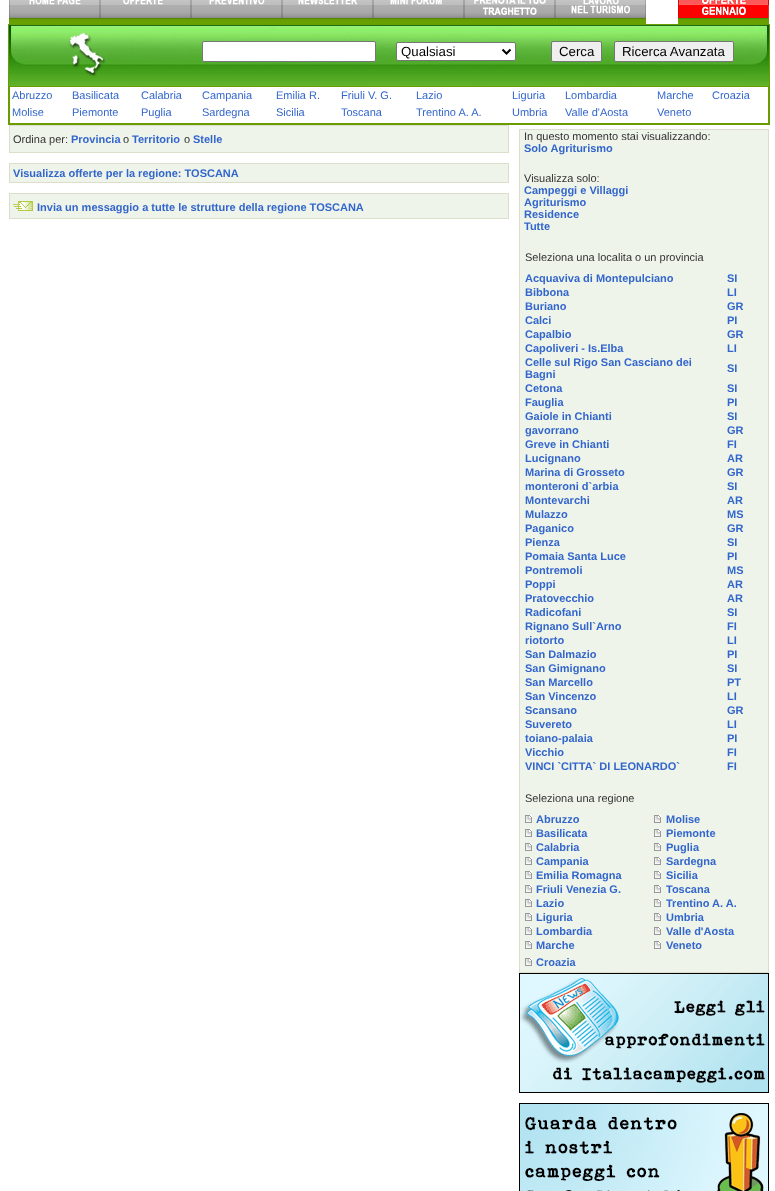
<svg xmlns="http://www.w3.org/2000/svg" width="775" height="1191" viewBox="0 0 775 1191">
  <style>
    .t1 { font: 13.25px Liberation Sans; fill: #000; }
    .t2 { font: 11px Liberation Sans; fill: #36c; }
    .t3 { font: 11px Liberation Sans; fill: #333; }
    .t4 { font: bold 11px Liberation Sans; fill: #36c; }
  </style>
  <rect width="100%" height="100%" fill="#fff"/>
  <image x="9" y="0" width="91" height="24" href="images/1.png"/>
  <image x="100" y="0" width="91" height="24" href="images/2.png"/>
  <image x="191" y="0" width="91" height="24" href="images/3.png"/>
  <image x="282" y="0" width="91" height="24" href="images/4.png"/>
  <image x="373" y="0" width="91" height="24" href="images/5.png"/>
  <image x="464" y="0" width="91" height="24" href="images/6.png"/>
  <image x="555" y="0" width="91" height="24" href="images/7.png"/>
  <image x="678" y="0" width="91" height="24" href="images/8.png"/>
  <rect x="8" y="24" width="762" height="1" fill="#699c00"/>
  <rect x="769" y="24" width="1" height="101" fill="#699c00"/>
  <rect x="8" y="124" width="762" height="1" fill="#699c00"/>
  <rect x="8" y="24" width="1" height="101" fill="#699c00"/>
  <image x="9" y="25" width="760" height="61" href="images/9.png"/>
  <image x="66" y="33" width="40" height="44" href="images/10.png"/>
  <rect x="202.5" y="41.5" width="173" height="20" rx="1.5" fill="#fff" stroke="#767676"/>
  <rect x="396.5" y="42.5" width="119" height="18" rx="1.5" fill="#fff" stroke="#767676"/>
  <path d="M502.5 49.5L506.5 53.5L510.5 49.5" fill="none" stroke="#000" stroke-width="2"/>
  <text x="401" y="56" class="t1">Qualsiasi</text>
  <rect x="551.5" y="41.5" width="50" height="20" rx="1.5" fill="#efefef" stroke="#767676"/>
  <text x="559" y="56" class="t1">Cerca</text>
  <rect x="614.5" y="41.5" width="119" height="20" rx="1.5" fill="#efefef" stroke="#767676"/>
  <text x="622" y="56" class="t1">Ricerca Avanzata</text>
  <rect x="9.5" y="86.5" width="759" height="37" fill="none" stroke="#699c00"/>
  <text x="12" y="99" class="t2">Abruzzo</text>
  <text x="72" y="99" class="t2">Basilicata</text>
  <text x="141" y="99" class="t2">Calabria</text>
  <text x="202" y="99" class="t2">Campania</text>
  <text x="276" y="99" class="t2">Emilia R.</text>
  <text x="341" y="99" class="t2">Friuli V. G.</text>
  <text x="416" y="99" class="t2">Lazio</text>
  <text x="512" y="99" class="t2">Liguria</text>
  <text x="565" y="99" class="t2">Lombardia</text>
  <text x="657" y="99" class="t2">Marche</text>
  <text x="712" y="99" class="t2">Croazia</text>
  <text x="12" y="116" class="t2">Molise</text>
  <text x="72" y="116" class="t2">Piemonte</text>
  <text x="141" y="116" class="t2">Puglia</text>
  <text x="202" y="116" class="t2">Sardegna</text>
  <text x="276" y="116" class="t2">Sicilia</text>
  <text x="341" y="116" class="t2">Toscana</text>
  <text x="416" y="116" class="t2">Trentino A. A.</text>
  <text x="512" y="116" class="t2">Umbria</text>
  <text x="565" y="116" class="t2">Valle d'Aosta</text>
  <text x="657" y="116" class="t2">Veneto</text>
  <rect x="9.5" y="125.5" width="499" height="27" fill="#eef4ea" stroke="#ddc"/>
  <text x="13" y="143" class="t3">Ordina per:</text>
  <text x="71" y="143" class="t4">Provincia</text>
  <text x="123" y="143" class="t3">o</text>
  <text x="132" y="143" class="t4">Territorio</text>
  <text x="184" y="143" class="t3">o</text>
  <text x="193" y="143" class="t4">Stelle</text>
  <rect x="9.5" y="163.5" width="499" height="19" fill="#eef4ea" stroke="#ddc"/>
  <text x="13" y="177" class="t4">Visualizza offerte per la regione: TOSCANA</text>
  <rect x="9.5" y="193.5" width="499" height="25" fill="#eef4ea" stroke="#ddc"/>
  <image x="13" y="201" width="20" height="10" href="images/11.png"/>
  <text x="37" y="211" class="t4">Invia un messaggio a tutte le strutture della regione TOSCANA</text>
  <rect x="519.5" y="129.5" width="249" height="843" fill="#eef4ea" stroke="#ddc"/>
  <text x="524" y="140" class="t3">In questo momento stai visualizzando:</text>
  <text x="524" y="152" class="t4">Solo Agriturismo</text>
  <text x="524" y="182" class="t3">Visualizza solo:</text>
  <text x="524" y="194" class="t4">Campeggi e Villaggi</text>
  <text x="524" y="206" class="t4">Agriturismo</text>
  <text x="524" y="218" class="t4">Residence</text>
  <text x="524" y="230" class="t4">Tutte</text>
  <text x="525" y="261" class="t3">Seleziona una localita o un provincia</text>
  <text x="525" y="282" class="t4">Acquaviva di Montepulciano</text>
  <text x="727" y="282" class="t4">SI</text>
  <text x="525" y="296" class="t4">Bibbona</text>
  <text x="727" y="296" class="t4">LI</text>
  <text x="525" y="310" class="t4">Buriano</text>
  <text x="727" y="310" class="t4">GR</text>
  <text x="525" y="324" class="t4">Calci</text>
  <text x="727" y="324" class="t4">PI</text>
  <text x="525" y="338" class="t4">Capalbio</text>
  <text x="727" y="338" class="t4">GR</text>
  <text x="525" y="352" class="t4">Capoliveri - Is.Elba</text>
  <text x="727" y="352" class="t4">LI</text>
  <text x="525" y="366" class="t4">Celle sul Rigo San Casciano dei</text>
  <text x="525" y="378" class="t4">Bagni</text>
  <text x="727" y="372" class="t4">SI</text>
  <text x="525" y="392" class="t4">Cetona</text>
  <text x="727" y="392" class="t4">SI</text>
  <text x="525" y="406" class="t4">Fauglia</text>
  <text x="727" y="406" class="t4">PI</text>
  <text x="525" y="420" class="t4">Gaiole in Chianti</text>
  <text x="727" y="420" class="t4">SI</text>
  <text x="525" y="434" class="t4">gavorrano</text>
  <text x="727" y="434" class="t4">GR</text>
  <text x="525" y="448" class="t4">Greve in Chianti</text>
  <text x="727" y="448" class="t4">FI</text>
  <text x="525" y="462" class="t4">Lucignano</text>
  <text x="727" y="462" class="t4">AR</text>
  <text x="525" y="476" class="t4">Marina di Grosseto</text>
  <text x="727" y="476" class="t4">GR</text>
  <text x="525" y="490" class="t4">monteroni d`arbia</text>
  <text x="727" y="490" class="t4">SI</text>
  <text x="525" y="504" class="t4">Montevarchi</text>
  <text x="727" y="504" class="t4">AR</text>
  <text x="525" y="518" class="t4">Mulazzo</text>
  <text x="727" y="518" class="t4">MS</text>
  <text x="525" y="532" class="t4">Paganico</text>
  <text x="727" y="532" class="t4">GR</text>
  <text x="525" y="546" class="t4">Pienza</text>
  <text x="727" y="546" class="t4">SI</text>
  <text x="525" y="560" class="t4">Pomaia Santa Luce</text>
  <text x="727" y="560" class="t4">PI</text>
  <text x="525" y="574" class="t4">Pontremoli</text>
  <text x="727" y="574" class="t4">MS</text>
  <text x="525" y="588" class="t4">Poppi</text>
  <text x="727" y="588" class="t4">AR</text>
  <text x="525" y="602" class="t4">Pratovecchio</text>
  <text x="727" y="602" class="t4">AR</text>
  <text x="525" y="616" class="t4">Radicofani</text>
  <text x="727" y="616" class="t4">SI</text>
  <text x="525" y="630" class="t4">Rignano Sull`Arno</text>
  <text x="727" y="630" class="t4">FI</text>
  <text x="525" y="644" class="t4">riotorto</text>
  <text x="727" y="644" class="t4">LI</text>
  <text x="525" y="658" class="t4">San Dalmazio</text>
  <text x="727" y="658" class="t4">PI</text>
  <text x="525" y="672" class="t4">San Gimignano</text>
  <text x="727" y="672" class="t4">SI</text>
  <text x="525" y="686" class="t4">San Marcello</text>
  <text x="727" y="686" class="t4">PT</text>
  <text x="525" y="700" class="t4">San Vincenzo</text>
  <text x="727" y="700" class="t4">LI</text>
  <text x="525" y="714" class="t4">Scansano</text>
  <text x="727" y="714" class="t4">GR</text>
  <text x="525" y="728" class="t4">Suvereto</text>
  <text x="727" y="728" class="t4">LI</text>
  <text x="525" y="742" class="t4">toiano-palaia</text>
  <text x="727" y="742" class="t4">PI</text>
  <text x="525" y="756" class="t4">Vicchio</text>
  <text x="727" y="756" class="t4">FI</text>
  <text x="525" y="770" class="t4">VINCI `CITTA` DI LEONARDO`</text>
  <text x="727" y="770" class="t4">FI</text>
  <text x="525" y="802" class="t3">Seleziona una regione</text>
  <image x="525" y="815" width="7" height="8" href="images/12.png"/>
  <text x="536" y="823" class="t4">Abruzzo</text>
  <image x="654" y="815" width="7" height="8" href="images/12.png"/>
  <text x="666" y="823" class="t4">Molise</text>
  <image x="525" y="829" width="7" height="8" href="images/12.png"/>
  <text x="536" y="837" class="t4">Basilicata</text>
  <image x="654" y="829" width="7" height="8" href="images/12.png"/>
  <text x="666" y="837" class="t4">Piemonte</text>
  <image x="525" y="843" width="7" height="8" href="images/12.png"/>
  <text x="536" y="851" class="t4">Calabria</text>
  <image x="654" y="843" width="7" height="8" href="images/12.png"/>
  <text x="666" y="851" class="t4">Puglia</text>
  <image x="525" y="857" width="7" height="8" href="images/12.png"/>
  <text x="536" y="865" class="t4">Campania</text>
  <image x="654" y="857" width="7" height="8" href="images/12.png"/>
  <text x="666" y="865" class="t4">Sardegna</text>
  <image x="525" y="871" width="7" height="8" href="images/12.png"/>
  <text x="536" y="879" class="t4">Emilia Romagna</text>
  <image x="654" y="871" width="7" height="8" href="images/12.png"/>
  <text x="666" y="879" class="t4">Sicilia</text>
  <image x="525" y="885" width="7" height="8" href="images/12.png"/>
  <text x="536" y="893" class="t4">Friuli Venezia G.</text>
  <image x="654" y="885" width="7" height="8" href="images/12.png"/>
  <text x="666" y="893" class="t4">Toscana</text>
  <image x="525" y="899" width="7" height="8" href="images/12.png"/>
  <text x="536" y="907" class="t4">Lazio</text>
  <image x="654" y="899" width="7" height="8" href="images/12.png"/>
  <text x="666" y="907" class="t4">Trentino A. A.</text>
  <image x="525" y="913" width="7" height="8" href="images/12.png"/>
  <text x="536" y="921" class="t4">Liguria</text>
  <image x="654" y="913" width="7" height="8" href="images/12.png"/>
  <text x="666" y="921" class="t4">Umbria</text>
  <image x="525" y="927" width="7" height="8" href="images/12.png"/>
  <text x="536" y="935" class="t4">Lombardia</text>
  <image x="654" y="927" width="7" height="8" href="images/12.png"/>
  <text x="666" y="935" class="t4">Valle d'Aosta</text>
  <image x="525" y="941" width="7" height="8" href="images/12.png"/>
  <text x="536" y="949" class="t4">Marche</text>
  <image x="654" y="941" width="7" height="8" href="images/12.png"/>
  <text x="666" y="949" class="t4">Veneto</text>
  <image x="525" y="958" width="7" height="8" href="images/12.png"/>
  <text x="536" y="966" class="t4">Croazia</text>
  <image x="519" y="973" width="250" height="120" href="images/13.png"/>
  <image x="519" y="1103" width="250" height="88" href="images/14.png"/>
</svg>
